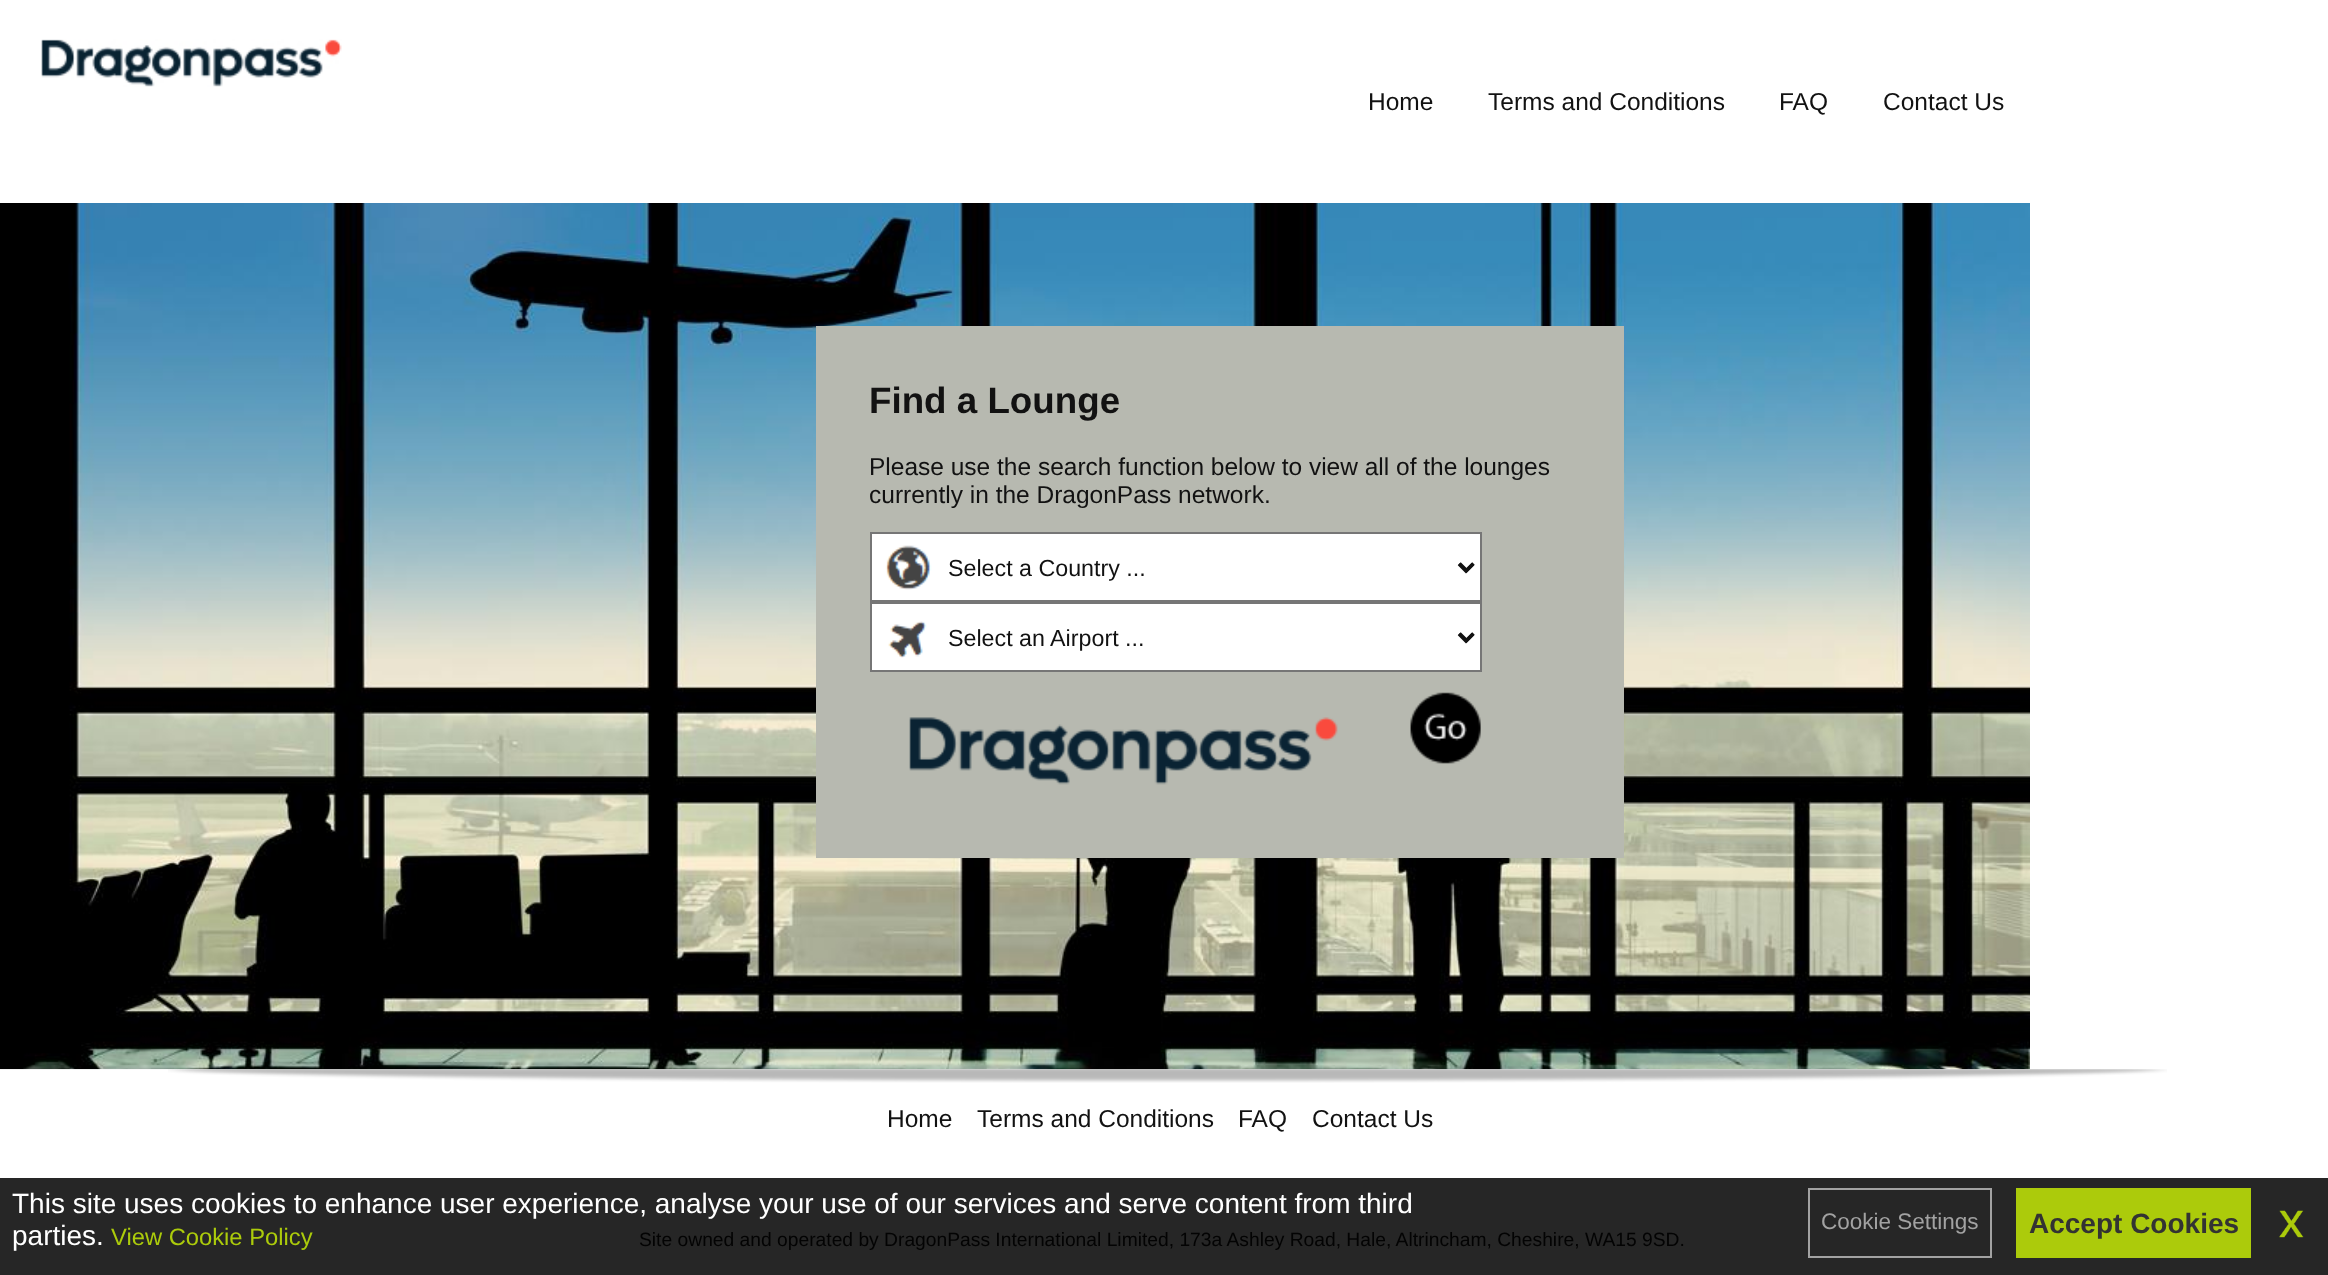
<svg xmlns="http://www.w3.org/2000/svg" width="2328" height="1275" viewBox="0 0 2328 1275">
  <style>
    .t1 { font: 24.5px Liberation Sans; fill: #121212; }
    .t2 { font: bold 36.75px Liberation Sans; fill: #121212; }
    .t3 { font: 23.25px Liberation Sans; fill: #121212; }
    .t4 { font: 19.25px Liberation Sans; fill: #030303; }
    .t5 { font: 28px Liberation Sans; fill: #fff; }
    .t6 { font: 23.75px Liberation Sans; fill: #accb0b; }
    .t7 { font: 22.5px Liberation Sans; fill: #a2a2a2; }
    .t8 { font: bold 28px Liberation Sans; fill: #333; }
  </style>
  <rect width="100%" height="100%" fill="#fff"/>
  <rect x="0" y="1178" width="2328" height="97" fill="#262626"/>
  <image x="41" y="39" width="301" height="48" href="images/1.png"/>
  <text x="1368" y="110" class="t1">Home</text>
  <text x="1488" y="110" class="t1">Terms and Conditions</text>
  <text x="1779" y="110" class="t1">FAQ</text>
  <text x="1883" y="110" class="t1">Contact Us</text>
  <image x="168" y="1069" width="1999" height="14" href="images/7.png"/>
  <image x="0" y="203" width="2030" height="867" href="images/2.png"/>
  <rect x="816" y="326" width="808" height="532" fill="#b7b9b0"/>
  <text x="869" y="413" class="t2">Find a Lounge</text>
  <text x="869" y="475" class="t1">Please use the search function below to view all of the lounges</text>
  <text x="869" y="503" class="t1">currently in the DragonPass network.</text>
  <rect x="872" y="534" width="608" height="66" fill="#fff"/>
  <image x="885" y="545" width="590" height="45" href="images/3.png"/>
  <rect x="871" y="533" width="610" height="68" fill="none" stroke="#767676" stroke-width="2"/>
  <path d="M1459 564L1466 571L1473 564" fill="none" stroke="#121212" stroke-width="3.5"/>
  <text x="948" y="576" class="t3">Select a Country ...</text>
  <rect x="872" y="604" width="608" height="66" fill="#fff"/>
  <image x="888" y="621" width="587" height="37" href="images/4.png"/>
  <rect x="871" y="603" width="610" height="68" fill="none" stroke="#767676" stroke-width="2"/>
  <path d="M1459 634L1466 641L1473 634" fill="none" stroke="#121212" stroke-width="3.5"/>
  <text x="948" y="646" class="t3">Select an Airport ...</text>
  <image x="909" y="717" width="429" height="68" href="images/5.png"/>
  <image x="1410" y="692" width="71" height="72" href="images/6.png"/>
  <text x="887" y="1127" class="t1">Home</text>
  <text x="977" y="1127" class="t1">Terms and Conditions</text>
  <text x="1238" y="1127" class="t1">FAQ</text>
  <text x="1312" y="1127" class="t1">Contact Us</text>
  <text x="639" y="1246" class="t4">Site owned and operated by DragonPass International Limited, 173a Ashley Road, Hale, Altrincham, Cheshire, WA15 9SD.</text>
  <text x="12" y="1213" class="t5">This site uses cookies to enhance user experience, analyse your use of our services and serve content from third</text>
  <text x="12" y="1245" class="t5">parties.</text>
  <text x="111" y="1245" class="t6">View Cookie Policy</text>
  <rect x="1809" y="1189" width="182" height="68" fill="none" stroke="#a2a2a2" stroke-width="2"/>
  <text x="1821" y="1229" class="t7">Cookie Settings</text>
  <rect x="2016" y="1188" width="235" height="70" fill="#accb0b"/>
  <text x="2029" y="1233" class="t8">Accept Cookies</text>
  <image x="2279" y="1210" width="25" height="28" href="images/8.png"/>
</svg>
